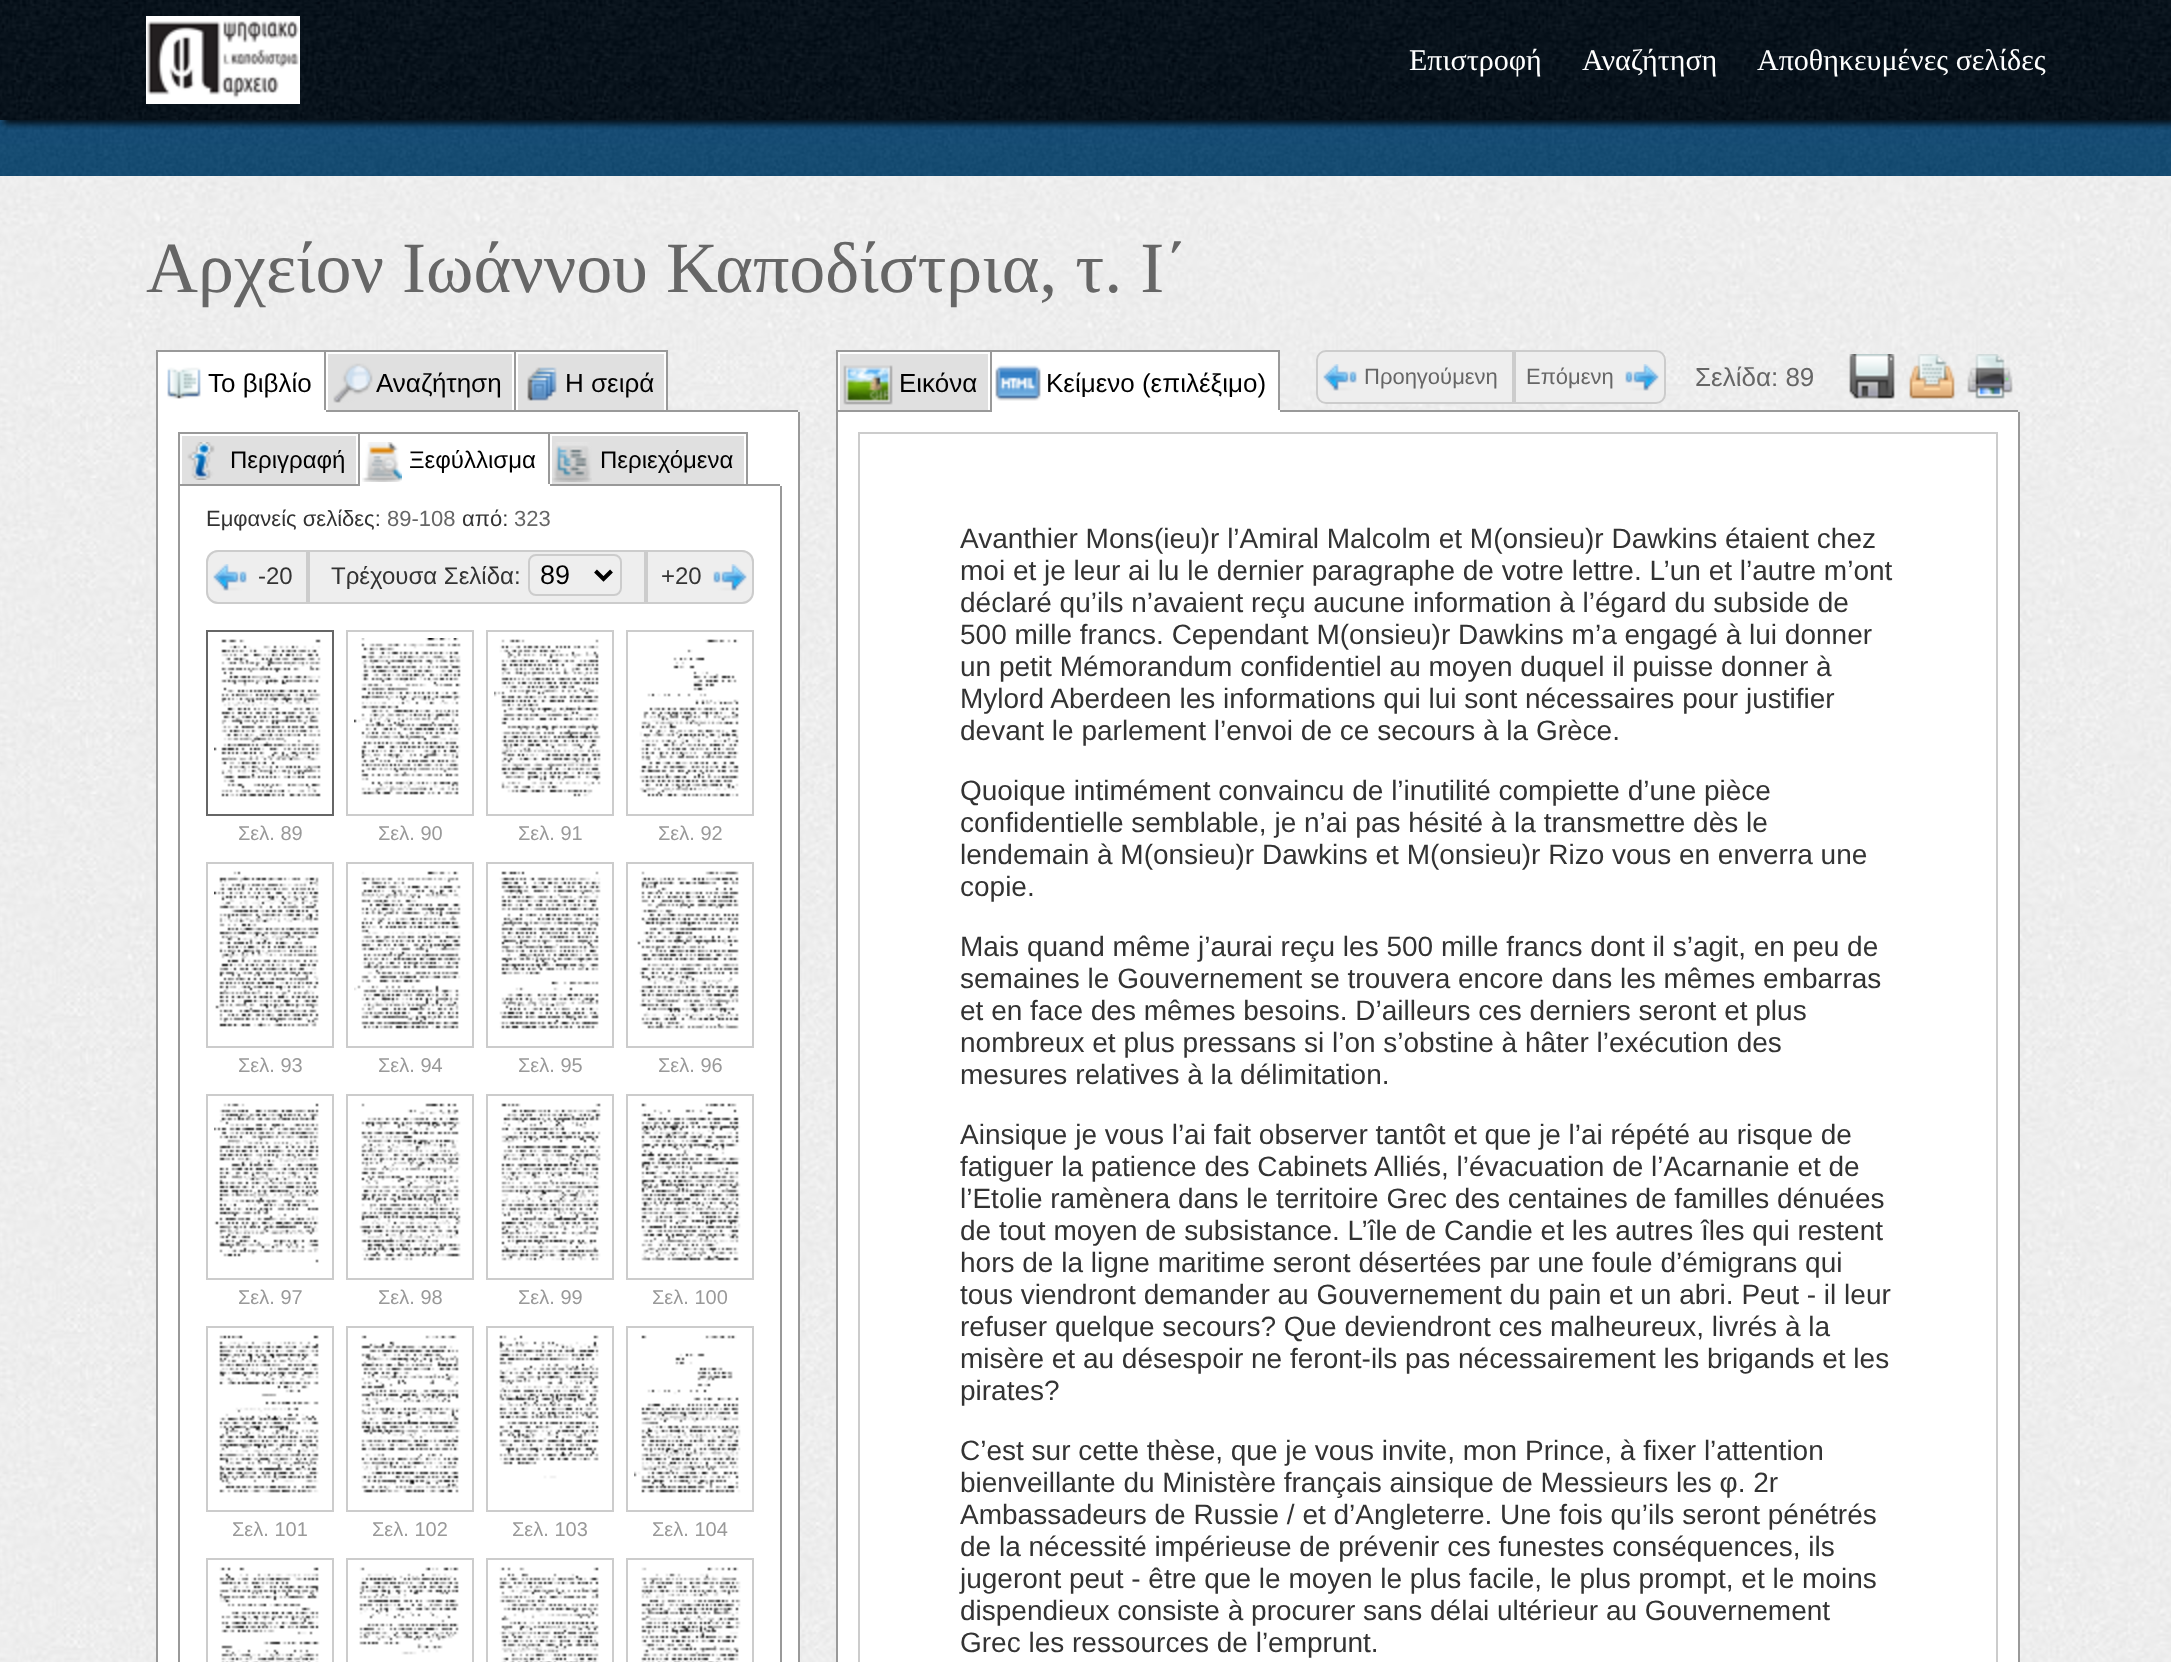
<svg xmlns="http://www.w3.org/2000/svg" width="2171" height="1662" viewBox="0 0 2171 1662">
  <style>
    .t1 { font: 30px Liberation Serif; fill: #fff; }
    .t2 { font: 72px Liberation Serif; fill: #666; }
    .t3 { font: 26px Liberation Sans; fill: #000; }
    .t4 { font: 24px Liberation Sans; fill: #000; }
    .t5 { font: 22px Liberation Sans; fill: #333; }
    .t6 { font: 22px Liberation Sans; fill: #666; }
    .t7 { font: 24px Liberation Sans; fill: #333; }
    .t8 { font: 27px Liberation Sans; fill: #000; }
    .t9 { font: 20px Liberation Sans; fill: #999; }
    .t10 { font: 26px Liberation Sans; fill: #666; }
    .t11 { font: 28px Liberation Sans; fill: #333; }
  </style>
  <defs>
    <clipPath id="clip1"><rect x="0" y="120" width="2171" height="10"/></clipPath>
    <clipPath id="clip2"><rect x="326" y="352" width="188" height="58"/></clipPath>
    <clipPath id="clip3"><rect x="516" y="352" width="150" height="58"/></clipPath>
    <clipPath id="clip4"><rect x="838" y="352" width="152" height="58"/></clipPath>
  </defs>
  <rect width="100%" height="100%" fill="#fff"/>
  <image x="0" y="0" width="2171" height="120" href="images/1.png"/>
  <image x="0" y="120" width="2171" height="56" href="images/3.png"/>
  <g clip-path="url(#clip1)">
    <rect x="4" y="4" width="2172" height="120" fill="#051019" filter="blur(3px)"/>
  </g>
  <image x="146" y="16" width="154" height="88" href="images/2.png"/>
  <text x="1409" y="70" class="t1">Επιστροφή</text>
  <text x="1582" y="70" class="t1">Αναζήτηση</text>
  <text x="1757" y="70" class="t1">Αποθηκευμένες σελίδες</text>
  <image x="0" y="176" width="2171" height="1486" href="images/4.png"/>
  <text x="146" y="292" class="t2">Αρχείον Ιωάννου Καποδίστρια, τ. Ι΄</text>
  <rect x="668" y="410" width="130" height="2" fill="#999"/>
  <rect x="156" y="350" width="2" height="62" fill="#999"/>
  <rect x="158" y="352" width="166" height="58" fill="#fff"/>
  <rect x="158" y="350" width="510" height="2" fill="#999"/>
  <rect x="324" y="350" width="2" height="62" fill="#999"/>
  <rect x="158" y="410" width="168" height="2" fill="#fff"/>
  <image x="167" y="367" width="34" height="32" href="images/5.png"/>
  <text x="208" y="392" class="t3">Το βιβλίο</text>
  <rect x="328" y="354" width="184" height="56" fill="#e0e0e0"/>
  <rect x="514" y="350" width="2" height="62" fill="#999"/>
  <rect x="326" y="410" width="190" height="2" fill="#999"/>
  <image x="333" y="363" width="40" height="40" href="images/6.png"/>
  <rect x="158" y="412" width="640" height="1250" fill="#fff"/>
  <path d="M156 412H800V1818C800 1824 796 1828 790 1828H166C160 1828 156 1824 156 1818ZM158 412H798V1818C798 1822 794 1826 790 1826H166C162 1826 158 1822 158 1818Z" fill="#999" fill-rule="evenodd"/>
  <g clip-path="url(#clip2)">
    <rect x="327" y="353" width="186" height="60" fill="none" stroke="#fff" stroke-width="2"/>
  </g>
  <text x="376" y="392" class="t3">Αναζήτηση</text>
  <rect x="518" y="354" width="146" height="56" fill="#e0e0e0"/>
  <rect x="666" y="350" width="2" height="62" fill="#999"/>
  <rect x="516" y="410" width="152" height="2" fill="#999"/>
  <image x="527" y="367" width="30" height="34" href="images/7.png"/>
  <g clip-path="url(#clip3)">
    <rect x="517" y="353" width="148" height="60" fill="none" stroke="#fff" stroke-width="2"/>
  </g>
  <text x="565" y="392" class="t3">Η σειρά</text>
  <rect x="748" y="484" width="32" height="2" fill="#999"/>
  <rect x="178" y="432" width="2" height="54" fill="#999"/>
  <rect x="182" y="436" width="174" height="48" fill="#e0e0e0"/>
  <rect x="180" y="432" width="568" height="2" fill="#999"/>
  <rect x="358" y="432" width="2" height="54" fill="#999"/>
  <rect x="180" y="484" width="180" height="2" fill="#999"/>
  <image x="187" y="442" width="28" height="38" href="images/8.png"/>
  <text x="230" y="468" class="t4">Περιγραφή</text>
  <rect x="548" y="432" width="2" height="54" fill="#999"/>
  <rect x="548" y="484" width="2" height="2" fill="#fff"/>
  <image x="362" y="442" width="40" height="40" href="images/9.png"/>
  <text x="409" y="468" class="t4">Ξεφύλλισμα</text>
  <rect x="552" y="436" width="192" height="48" fill="#e0e0e0"/>
  <rect x="746" y="432" width="2" height="54" fill="#999"/>
  <rect x="550" y="484" width="198" height="2" fill="#999"/>
  <image x="552" y="442" width="40" height="40" href="images/10.png"/>
  <text x="600" y="468" class="t4">Περιεχόμενα</text>
  <path d="M178 486H782V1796C782 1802 778 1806 772 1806H188C182 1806 178 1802 178 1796ZM180 486H780V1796C780 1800 776 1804 772 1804H188C184 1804 180 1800 180 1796Z" fill="#999" fill-rule="evenodd"/>
  <text x="206" y="526" class="t5">Εμφανείς σελίδες:</text>
  <text x="387" y="526" class="t6">89-108</text>
  <text x="462" y="526" class="t5">από:</text>
  <text x="514" y="526" class="t6">323</text>
  <path d="M218 550H308V604H218C211.5 604 206 598.5 206 592V562C206 555.5 211.5 550 218 550Z" fill="#eee"/>
  <image x="213" y="564" width="34" height="27" href="images/11.png"/>
  <path d="M218 551H307V603H218C212 603 207 598 207 592V562C207 556 212 551 218 551Z" fill="none" stroke="#ccc" stroke-width="2"/>
  <text x="258" y="584" class="t7">-20</text>
  <rect x="309" y="551" width="336" height="52" fill="#eee" stroke="#ccc" stroke-width="2"/>
  <text x="331" y="584" class="t7">Τρέχουσα Σελίδα:</text>
  <rect x="529" y="555" width="92" height="40" rx="7" fill="none" stroke="#ccc" stroke-width="2"/>
  <path d="M595.5 571L603.5 579L611.5 571" fill="none" stroke="#000" stroke-width="4"/>
  <text x="540" y="584" class="t8">89</text>
  <path d="M646 550H742C748.5 550 754 555.5 754 562V592C754 598.5 748.5 604 742 604H646Z" fill="#eee"/>
  <image x="713" y="564" width="34" height="27" href="images/12.png"/>
  <path d="M647 551H742C748 551 753 556 753 562V592C753 598 748 603 742 603H647Z" fill="none" stroke="#ccc" stroke-width="2"/>
  <text x="661" y="584" class="t7">+20</text>
  <rect x="207" y="631" width="126" height="184" fill="none" stroke="#666" stroke-width="2"/>
  <image x="214" y="639" width="107" height="158" href="images/13.png"/>
  <text x="238" y="840" class="t9">Σελ. 89</text>
  <rect x="347" y="631" width="126" height="184" fill="none" stroke="#ccc" stroke-width="2"/>
  <image x="354" y="638" width="107" height="157" href="images/14.png"/>
  <text x="378" y="840" class="t9">Σελ. 90</text>
  <rect x="487" y="631" width="126" height="184" fill="none" stroke="#ccc" stroke-width="2"/>
  <image x="494" y="639" width="107" height="158" href="images/15.png"/>
  <text x="518" y="840" class="t9">Σελ. 91</text>
  <rect x="627" y="631" width="126" height="184" fill="none" stroke="#ccc" stroke-width="2"/>
  <image x="639" y="639" width="100" height="158" href="images/16.png"/>
  <text x="658" y="840" class="t9">Σελ. 92</text>
  <rect x="207" y="863" width="126" height="184" fill="none" stroke="#ccc" stroke-width="2"/>
  <image x="214" y="871" width="105" height="157" href="images/17.png"/>
  <text x="238" y="1072" class="t9">Σελ. 93</text>
  <rect x="347" y="863" width="126" height="184" fill="none" stroke="#ccc" stroke-width="2"/>
  <image x="354" y="871" width="107" height="158" href="images/18.png"/>
  <text x="378" y="1072" class="t9">Σελ. 94</text>
  <rect x="487" y="863" width="126" height="184" fill="none" stroke="#ccc" stroke-width="2"/>
  <image x="499" y="871" width="102" height="158" href="images/19.png"/>
  <text x="518" y="1072" class="t9">Σελ. 95</text>
  <rect x="627" y="863" width="126" height="184" fill="none" stroke="#ccc" stroke-width="2"/>
  <image x="637" y="871" width="103" height="158" href="images/20.png"/>
  <text x="658" y="1072" class="t9">Σελ. 96</text>
  <rect x="207" y="1095" width="126" height="184" fill="none" stroke="#ccc" stroke-width="2"/>
  <image x="214" y="1103" width="105" height="160" href="images/21.png"/>
  <text x="238" y="1304" class="t9">Σελ. 97</text>
  <rect x="347" y="1095" width="126" height="184" fill="none" stroke="#ccc" stroke-width="2"/>
  <image x="359" y="1103" width="102" height="158" href="images/22.png"/>
  <text x="378" y="1304" class="t9">Σελ. 98</text>
  <rect x="487" y="1095" width="126" height="184" fill="none" stroke="#ccc" stroke-width="2"/>
  <image x="501" y="1103" width="100" height="158" href="images/23.png"/>
  <text x="518" y="1304" class="t9">Σελ. 99</text>
  <rect x="627" y="1095" width="126" height="184" fill="none" stroke="#ccc" stroke-width="2"/>
  <image x="640" y="1103" width="101" height="158" href="images/24.png"/>
  <text x="652" y="1304" class="t9">Σελ. 100</text>
  <rect x="207" y="1327" width="126" height="184" fill="none" stroke="#ccc" stroke-width="2"/>
  <image x="219" y="1335" width="100" height="158" href="images/25.png"/>
  <text x="232" y="1536" class="t9">Σελ. 101</text>
  <rect x="347" y="1327" width="126" height="184" fill="none" stroke="#ccc" stroke-width="2"/>
  <image x="361" y="1335" width="100" height="158" href="images/26.png"/>
  <text x="372" y="1536" class="t9">Σελ. 102</text>
  <rect x="487" y="1327" width="126" height="184" fill="none" stroke="#ccc" stroke-width="2"/>
  <image x="499" y="1335" width="100" height="144" href="images/27.png"/>
  <text x="512" y="1536" class="t9">Σελ. 103</text>
  <rect x="627" y="1327" width="126" height="184" fill="none" stroke="#ccc" stroke-width="2"/>
  <image x="634" y="1335" width="107" height="158" href="images/28.png"/>
  <text x="652" y="1536" class="t9">Σελ. 104</text>
  <rect x="207" y="1559" width="126" height="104" fill="none" stroke="#ccc" stroke-width="2"/>
  <image x="219" y="1567" width="101" height="95" href="images/29.png"/>
  <rect x="347" y="1559" width="126" height="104" fill="none" stroke="#ccc" stroke-width="2"/>
  <image x="359" y="1567" width="100" height="88" href="images/30.png"/>
  <rect x="487" y="1559" width="126" height="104" fill="none" stroke="#ccc" stroke-width="2"/>
  <image x="499" y="1567" width="100" height="95" href="images/31.png"/>
  <rect x="627" y="1559" width="126" height="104" fill="none" stroke="#ccc" stroke-width="2"/>
  <image x="641" y="1567" width="100" height="95" href="images/32.png"/>
  <rect x="1280" y="410" width="738" height="2" fill="#999"/>
  <rect x="836" y="350" width="2" height="62" fill="#999"/>
  <rect x="840" y="354" width="148" height="56" fill="#e0e0e0"/>
  <rect x="838" y="350" width="442" height="2" fill="#999"/>
  <rect x="990" y="350" width="2" height="62" fill="#999"/>
  <rect x="838" y="410" width="154" height="2" fill="#999"/>
  <image x="843" y="365" width="50" height="40" href="images/33.png"/>
  <rect x="838" y="412" width="1180" height="1250" fill="#fff"/>
  <path d="M836 412H2020V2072C2020 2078 2016 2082 2010 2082H846C840 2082 836 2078 836 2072ZM838 412H2018V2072C2018 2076 2014 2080 2010 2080H846C842 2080 838 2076 838 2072Z" fill="#999" fill-rule="evenodd"/>
  <g clip-path="url(#clip4)">
    <rect x="839" y="353" width="150" height="60" fill="none" stroke="#fff" stroke-width="2"/>
  </g>
  <text x="899" y="392" class="t3">Εικόνα</text>
  <rect x="992" y="352" width="286" height="58" fill="#fff"/>
  <rect x="1278" y="350" width="2" height="62" fill="#999"/>
  <rect x="992" y="410" width="288" height="2" fill="#fff"/>
  <image x="995" y="365" width="46" height="36" href="images/34.png"/>
  <text x="1046" y="392" class="t3">Κείμενο (επιλέξιμο)</text>
  <path d="M1326 350H1514V404H1326C1320.5 404 1316 399.5 1316 394V360C1316 354.5 1320.5 350 1326 350Z" fill="#eee"/>
  <image x="1323" y="364" width="34" height="27" href="images/11.png"/>
  <path d="M1326 351H1513V403H1326C1321 403 1317 399 1317 394V360C1317 355 1321 351 1326 351Z" fill="none" stroke="#ccc" stroke-width="2"/>
  <text x="1364" y="384" class="t6">Προηγούμενη</text>
  <path d="M1514 350H1656C1661.5 350 1666 354.5 1666 360V394C1666 399.5 1661.5 404 1656 404H1514Z" fill="#eee"/>
  <image x="1625" y="364" width="34" height="27" href="images/12.png"/>
  <path d="M1515 351H1656C1661 351 1665 355 1665 360V394C1665 399 1661 403 1656 403H1515Z" fill="none" stroke="#ccc" stroke-width="2"/>
  <text x="1526" y="384" class="t6">Επόμενη</text>
  <text x="1695" y="386" class="t10">Σελίδα: 89</text>
  <image x="1849" y="354" width="46" height="45" href="images/35.png"/>
  <image x="1909" y="354" width="46" height="45" href="images/36.png"/>
  <image x="1967" y="354" width="46" height="45" href="images/37.png"/>
  <rect x="859" y="433" width="1138" height="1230" fill="none" stroke="#ccc" stroke-width="2"/>
  <text x="960" y="548" class="t11">Avanthier Mons(ieu)r l’Amiral Malcolm et M(onsieu)r Dawkins étaient chez</text>
  <text x="960" y="580" class="t11">moi et je leur ai lu le dernier paragraphe de votre lettre. L’un et l’autre m’ont</text>
  <text x="960" y="612" class="t11">déclaré qu’ils n’avaient reçu aucune information à l’égard du subside de</text>
  <text x="960" y="644" class="t11">500 mille francs. Cependant M(onsieu)r Dawkins m’a engagé à lui donner</text>
  <text x="960" y="676" class="t11">un petit Mémorandum confidentiel au moyen duquel il puisse donner à</text>
  <text x="960" y="708" class="t11">Mylord Aberdeen les informations qui lui sont nécessaires pour justifier</text>
  <text x="960" y="740" class="t11">devant le parlement l’envoi de ce secours à la Grèce.</text>
  <text x="960" y="800" class="t11">Quoique intimément convaincu de l’inutilité compiette d’une pièce</text>
  <text x="960" y="832" class="t11">confidentielle semblable, je n’ai pas hésité à la transmettre dès le</text>
  <text x="960" y="864" class="t11">lendemain à M(onsieu)r Dawkins et M(onsieu)r Rizo vous en enverra une</text>
  <text x="960" y="896" class="t11">copie.</text>
  <text x="960" y="956" class="t11">Mais quand même j’aurai reçu les 500 mille francs dont il s’agit, en peu de</text>
  <text x="960" y="988" class="t11">semaines le Gouvernement se trouvera encore dans les mêmes embarras</text>
  <text x="960" y="1020" class="t11">et en face des mêmes besoins. D’ailleurs ces derniers seront et plus</text>
  <text x="960" y="1052" class="t11">nombreux et plus pressans si l’on s’obstine à hâter l’exécution des</text>
  <text x="960" y="1084" class="t11">mesures relatives à la délimitation.</text>
  <text x="960" y="1144" class="t11">Ainsique je vous l’ai fait observer tantôt et que je l’ai répété au risque de</text>
  <text x="960" y="1176" class="t11">fatiguer la patience des Cabinets Alliés, l’évacuation de l’Acarnanie et de</text>
  <text x="960" y="1208" class="t11">l’Etolie ramènera dans le territoire Grec des centaines de familles dénuées</text>
  <text x="960" y="1240" class="t11">de tout moyen de subsistance. L’île de Candie et les autres îles qui restent</text>
  <text x="960" y="1272" class="t11">hors de la ligne maritime seront désertées par une foule d’émigrans qui</text>
  <text x="960" y="1304" class="t11">tous viendront demander au Gouvernement du pain et un abri. Peut - il leur</text>
  <text x="960" y="1336" class="t11">refuser quelque secours? Que deviendront ces malheureux, livrés à la</text>
  <text x="960" y="1368" class="t11">misère et au désespoir ne feront-ils pas nécessairement les brigands et les</text>
  <text x="960" y="1400" class="t11">pirates?</text>
  <text x="960" y="1460" class="t11">C’est sur cette thèse, que je vous invite, mon Prince, à fixer l’attention</text>
  <text x="960" y="1492" class="t11">bienveillante du Ministère français ainsique de Messieurs les φ. 2r</text>
  <text x="960" y="1524" class="t11">Ambassadeurs de Russie / et d’Angleterre. Une fois qu’ils seront pénétrés</text>
  <text x="960" y="1556" class="t11">de la nécessité impérieuse de prévenir ces funestes conséquences, ils</text>
  <text x="960" y="1588" class="t11">jugeront peut - être que le moyen le plus facile, le plus prompt, et le moins</text>
  <text x="960" y="1620" class="t11">dispendieux consiste à procurer sans délai ultérieur au Gouvernement</text>
  <text x="960" y="1652" class="t11">Grec les ressources de l’emprunt.</text>
</svg>
